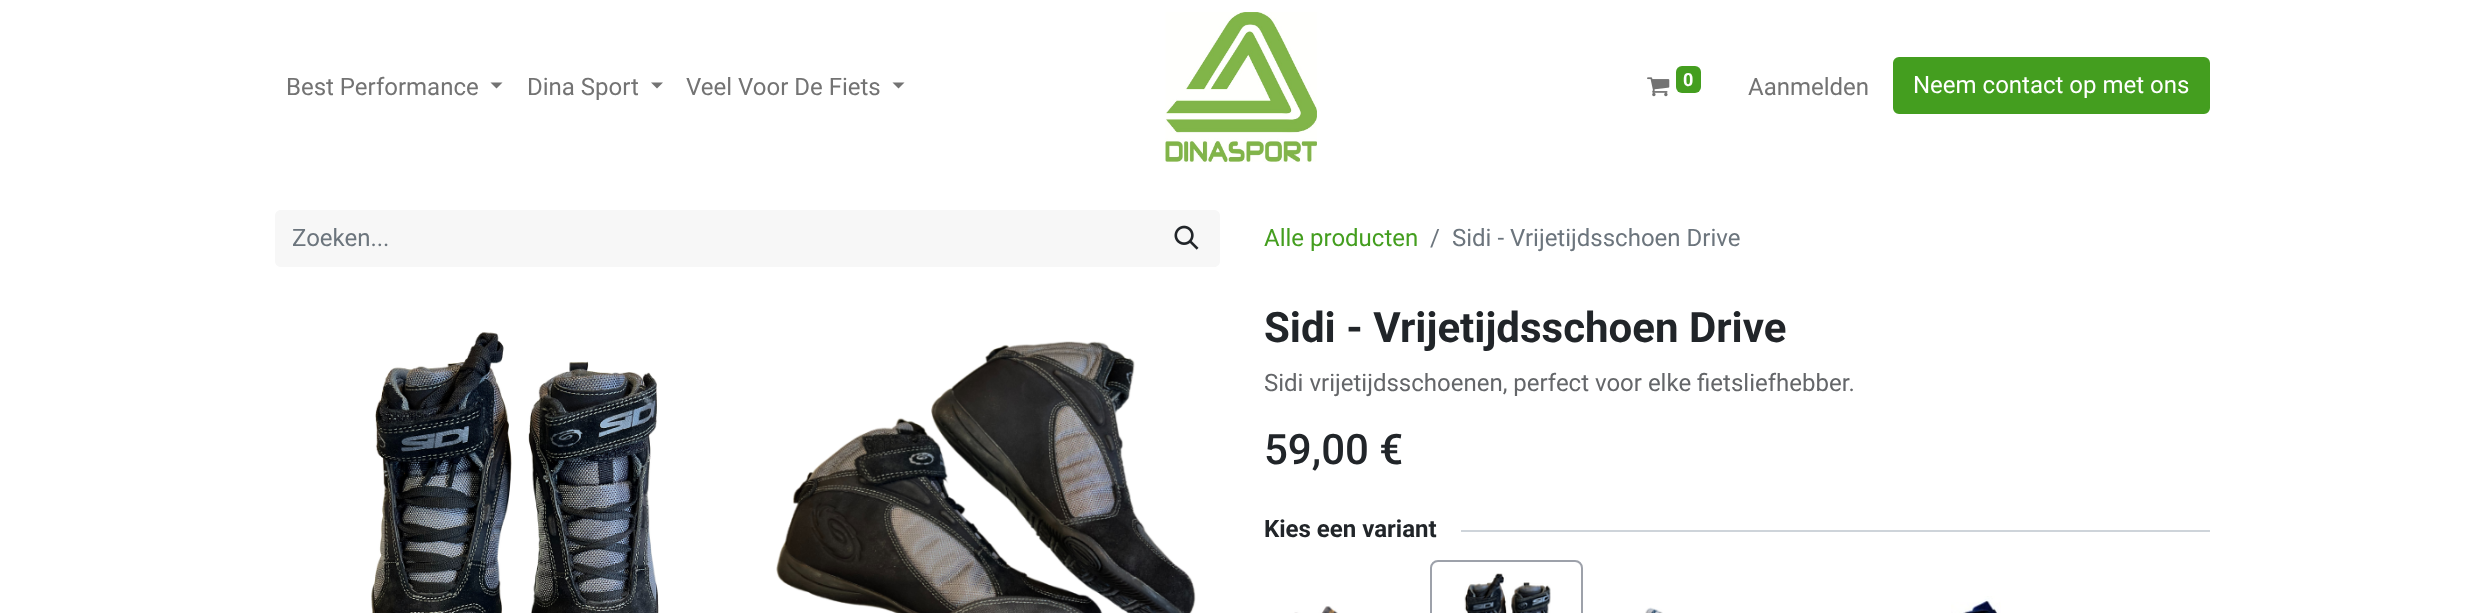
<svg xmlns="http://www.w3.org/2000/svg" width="2482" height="613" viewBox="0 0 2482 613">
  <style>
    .t1 { font: 24px Roboto; fill: #737373; }
    .t2 { font: bold 18px Roboto; fill: #fff; }
    .t3 { font: 24px Roboto; fill: #fff; }
    .t4 { font: 24px Roboto; fill: #6c757d; }
    .t5 { font: 24px Roboto; fill: #449e1f; }
    .t6 { font: bold 42px Roboto; fill: #212529; }
    .t7 { font: 24px Roboto; fill: #646669; }
    .t8 { font: 500 42px Roboto; fill: #212529; }
    .t9 { font: bold 24px Roboto; fill: #212529; }
  </style>
  <defs>
    <clipPath id="clip1"><rect x="293" y="224" width="807" height="28"/></clipPath>
  </defs>
  <rect width="100%" height="100%" fill="#fff"/>
  <text x="286" y="95" class="t1">Best Performance</text>
  <path d="M490.5 82.5H502.5L496.5 88.5Z" fill="#737373"/>
  <text x="527" y="95" class="t1">Dina Sport</text>
  <path d="M651 82.5H663L657 88.5Z" fill="#737373"/>
  <text x="686" y="95" class="t1">Veel Voor De Fiets</text>
  <path d="M892.5 82.5H904.5L898.5 88.5Z" fill="#737373"/>
  <image x="1165" y="12" width="152" height="150" href="images/1.png"/>
  <image x="1647" y="77" width="23" height="20" href="images/2.png"/>
  <rect x="1676" y="66" width="25" height="27" rx="6" fill="#449e1f"/>
  <text x="1683" y="86" class="t2">0</text>
  <text x="1748" y="95" class="t1">Aanmelden</text>
  <rect x="1894" y="58" width="315" height="55" rx="5" fill="#449e1f" stroke="#449e1f" stroke-width="2"/>
  <text x="1913" y="93" class="t3">Neem contact op met ons</text>
  <path d="M281 210H1157V267H281C277.5 267 275 264.5 275 261V216C275 212.5 277.5 210 281 210Z" fill="#f7f7f7"/>
  <g clip-path="url(#clip1)">
    <text x="292" y="246" class="t4">Zoeken...</text>
  </g>
  <path d="M1155 210H1214C1217.5 210 1220 212.5 1220 216V261C1220 264.5 1217.5 267 1214 267H1155Z" fill="#f7f7f7"/>
  <image x="1174" y="225" width="25" height="25" href="images/3.png"/>
  <text x="1264" y="246" class="t5">Alle producten</text>
  <text x="1430" y="246" class="t4">/</text>
  <text x="1452" y="246" class="t4">Sidi - Vrijetijdsschoen Drive</text>
  <image x="371" y="332" width="288" height="281" href="images/4.png"/>
  <image x="776" y="341" width="420" height="272" href="images/5.png"/>
  <text x="1264" y="342" class="t6">Sidi - Vrijetijdsschoen Drive</text>
  <text x="1264" y="391" class="t7">Sidi vrijetijdsschoenen, perfect voor elke fietsliefhebber.</text>
  <text x="1264" y="464" class="t8">59,00 €</text>
  <text x="1264" y="537" class="t9">Kies een variant</text>
  <rect x="1461" y="530" width="749" height="2" fill="#ced4da"/>
  <image x="1294" y="606" width="44" height="7" href="images/6.png"/>
  <rect x="1431" y="561" width="151" height="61" rx="7" fill="none" stroke="#9da1aa" stroke-width="2"/>
  <image x="1464" y="573" width="87" height="40" href="images/7.png"/>
  <image x="1645" y="607" width="18" height="6" href="images/8.png"/>
  <image x="1951" y="596" width="50" height="17" href="images/9.png"/>
</svg>
